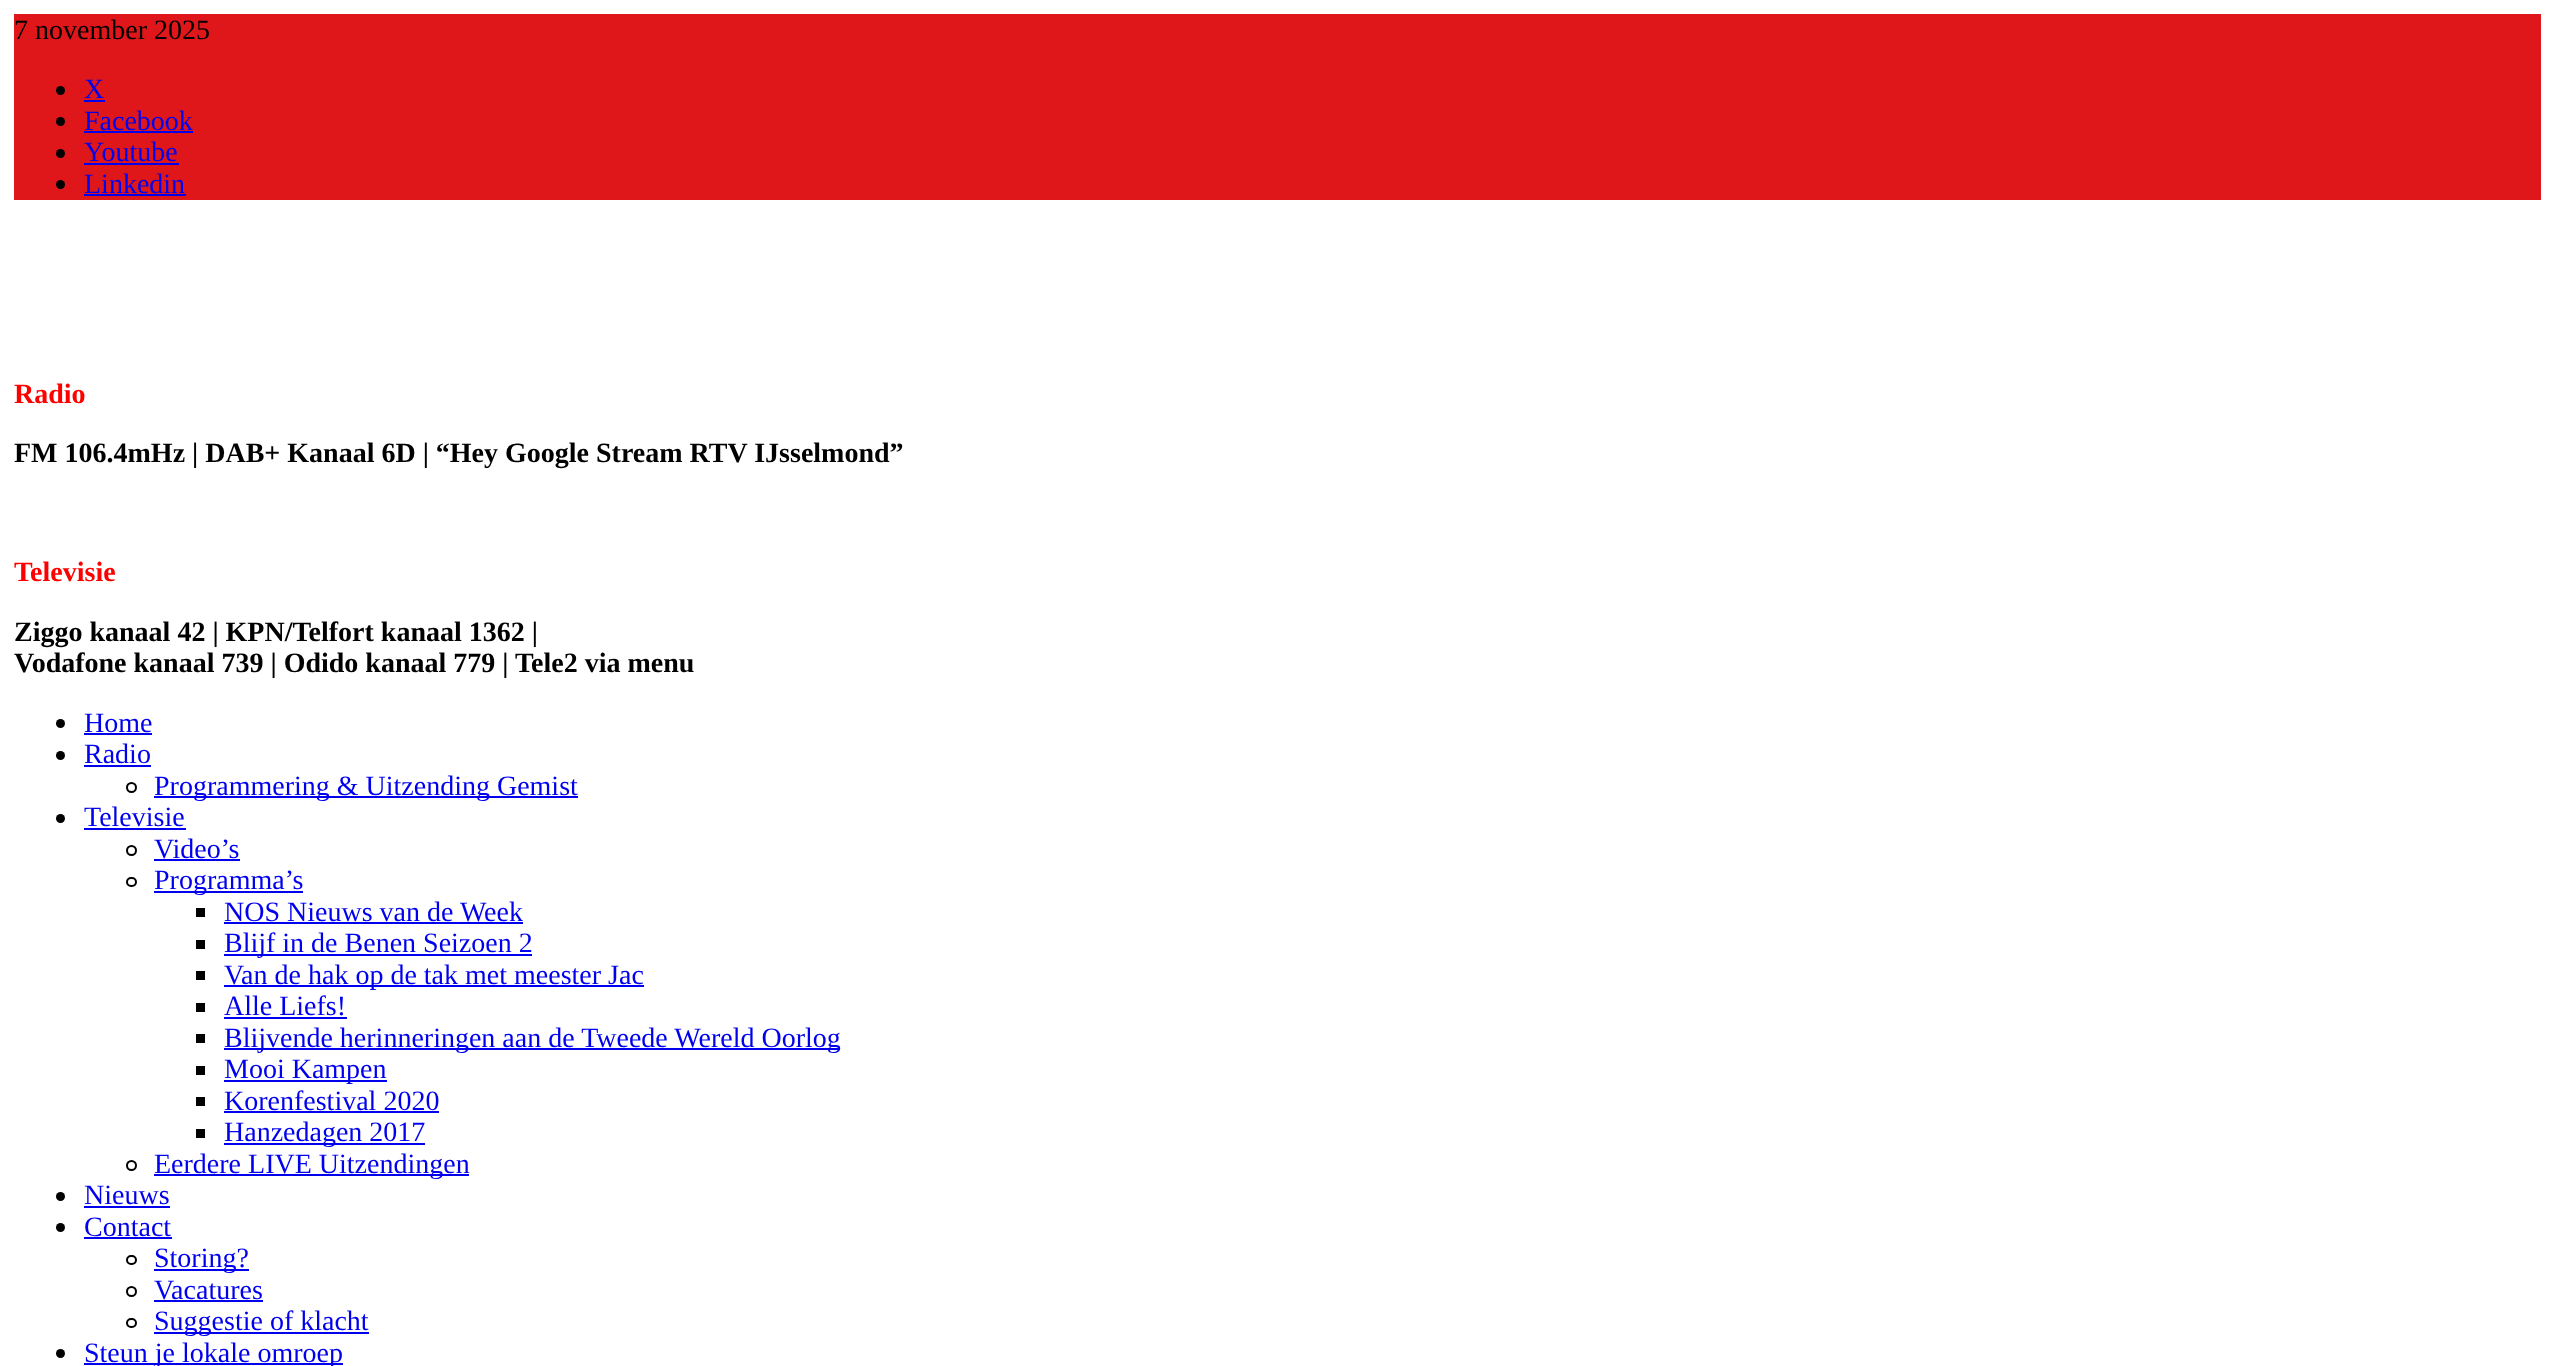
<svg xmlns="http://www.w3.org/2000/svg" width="2554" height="1366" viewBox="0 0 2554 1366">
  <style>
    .t1 { font: 28px Liberation Serif; fill: #000; }
    .t2 { font: 28px Liberation Serif; fill: #00e; }
    .t3 { font: bold 28px Liberation Serif; fill: #f00; }
    .t4 { font: bold 28px Liberation Serif; fill: #000; }
  </style>
  <rect width="100%" height="100%" fill="#fff"/>
  <rect x="14" y="14" width="2527" height="186" fill="#e0171a"/>
  <text x="14" y="39" class="t1">7 november 2025</text>
  <circle cx="60.5" cy="90.5" r="4.5" fill="#000"/>
  <text x="84" y="98" class="t2">X</text>
  <rect x="84" y="100" width="21" height="2" fill="#00e"/>
  <circle cx="60.5" cy="121.5" r="4.5" fill="#000"/>
  <text x="84" y="130" class="t2">Facebook</text>
  <rect x="84" y="131" width="109" height="2" fill="#00e"/>
  <circle cx="60.5" cy="153.5" r="4.5" fill="#000"/>
  <text x="84" y="161" class="t2">Youtube</text>
  <rect x="84" y="163" width="95" height="2" fill="#00e"/>
  <circle cx="60.5" cy="184.5" r="4.5" fill="#000"/>
  <text x="84" y="193" class="t2">Linkedin</text>
  <rect x="84" y="194" width="102" height="2" fill="#00e"/>
  <text x="14" y="403" class="t3">Radio</text>
  <text x="14" y="462" class="t4">FM 106.4mHz | DAB+ Kanaal 6D | “Hey Google Stream RTV IJsselmond”</text>
  <text x="14" y="581" class="t3">Televisie</text>
  <text x="14" y="641" class="t4">Ziggo kanaal 42 | KPN/Telfort kanaal 1362 |</text>
  <text x="14" y="672" class="t4">Vodafone kanaal 739 | Odido kanaal 779 | Tele2 via menu</text>
  <circle cx="60.5" cy="723.5" r="4.5" fill="#000"/>
  <text x="84" y="732" class="t2">Home</text>
  <rect x="84" y="733" width="68" height="2" fill="#00e"/>
  <circle cx="60.5" cy="755.5" r="4.5" fill="#000"/>
  <text x="84" y="763" class="t2">Radio</text>
  <rect x="84" y="765" width="67" height="2" fill="#00e"/>
  <circle cx="131.5" cy="787.5" r="4.5" fill="none" stroke="#000" stroke-width="2"/>
  <rect x="154" y="796" width="424" height="2" fill="#00e"/>
  <text x="154" y="795" class="t2">Programmering &amp; Uitzending Gemist</text>
  <circle cx="60.5" cy="818.5" r="4.5" fill="#000"/>
  <text x="84" y="826" class="t2">Televisie</text>
  <rect x="84" y="828" width="102" height="2" fill="#00e"/>
  <circle cx="131.5" cy="850.5" r="4.5" fill="none" stroke="#000" stroke-width="2"/>
  <text x="154" y="858" class="t2">Video’s</text>
  <rect x="154" y="859" width="86" height="2" fill="#00e"/>
  <rect x="127" y="878" width="9" height="8" rx="4" fill="none" stroke="#000" stroke-width="2"/>
  <rect x="154" y="891" width="149" height="2" fill="#00e"/>
  <text x="154" y="889" class="t2">Programma’s</text>
  <rect x="196" y="908" width="9" height="9" fill="#000"/>
  <text x="224" y="921" class="t2">NOS Nieuws van de Week</text>
  <rect x="224" y="922" width="299" height="2" fill="#00e"/>
  <rect x="196" y="940" width="9" height="9" fill="#000"/>
  <rect x="224" y="954" width="308" height="2" fill="#00e"/>
  <text x="224" y="952" class="t2">Blijf in de Benen Seizoen 2</text>
  <rect x="196" y="971" width="9" height="9" fill="#000"/>
  <rect x="224" y="985" width="420" height="2" fill="#00e"/>
  <text x="224" y="984" class="t2">Van de hak op de tak met meester Jac</text>
  <rect x="196" y="1003" width="9" height="9" fill="#000"/>
  <text x="224" y="1015" class="t2">Alle Liefs!</text>
  <rect x="224" y="1017" width="123" height="2" fill="#00e"/>
  <rect x="196" y="1034" width="9" height="9" fill="#000"/>
  <rect x="224" y="1048" width="616" height="2" fill="#00e"/>
  <text x="224" y="1047" class="t2">Blijvende herinneringen aan de Tweede Wereld Oorlog</text>
  <rect x="196" y="1066" width="9" height="9" fill="#000"/>
  <rect x="224" y="1080" width="163" height="2" fill="#00e"/>
  <text x="224" y="1078" class="t2">Mooi Kampen</text>
  <rect x="196" y="1097" width="9" height="9" fill="#000"/>
  <text x="224" y="1110" class="t2">Korenfestival 2020</text>
  <rect x="224" y="1111" width="215" height="2" fill="#00e"/>
  <rect x="196" y="1129" width="9" height="9" fill="#000"/>
  <rect x="224" y="1143" width="201" height="2" fill="#00e"/>
  <text x="224" y="1141" class="t2">Hanzedagen 2017</text>
  <circle cx="131.5" cy="1165.5" r="4.5" fill="none" stroke="#000" stroke-width="2"/>
  <rect x="154" y="1174" width="315" height="2" fill="#00e"/>
  <text x="154" y="1173" class="t2">Eerdere LIVE Uitzendingen</text>
  <circle cx="60.5" cy="1196.5" r="4.5" fill="#000"/>
  <text x="84" y="1204" class="t2">Nieuws</text>
  <rect x="84" y="1206" width="86" height="2" fill="#00e"/>
  <circle cx="60.5" cy="1227.5" r="4.5" fill="#000"/>
  <text x="84" y="1236" class="t2">Contact</text>
  <rect x="84" y="1237" width="88" height="2" fill="#00e"/>
  <rect x="127" y="1256" width="9" height="8" rx="4" fill="none" stroke="#000" stroke-width="2"/>
  <rect x="154" y="1269" width="95" height="2" fill="#00e"/>
  <text x="154" y="1267" class="t2">Storing?</text>
  <circle cx="131.5" cy="1291.5" r="4.5" fill="none" stroke="#000" stroke-width="2"/>
  <text x="154" y="1299" class="t2">Vacatures</text>
  <rect x="154" y="1300" width="109" height="2" fill="#00e"/>
  <rect x="127" y="1319" width="9" height="8" rx="4" fill="none" stroke="#000" stroke-width="2"/>
  <rect x="154" y="1332" width="215" height="2" fill="#00e"/>
  <text x="154" y="1330" class="t2">Suggestie of klacht</text>
  <circle cx="60.5" cy="1353.5" r="4.5" fill="#000"/>
  <rect x="84" y="1363" width="259" height="2" fill="#00e"/>
  <text x="84" y="1362" class="t2">Steun je lokale omroep</text>
</svg>
